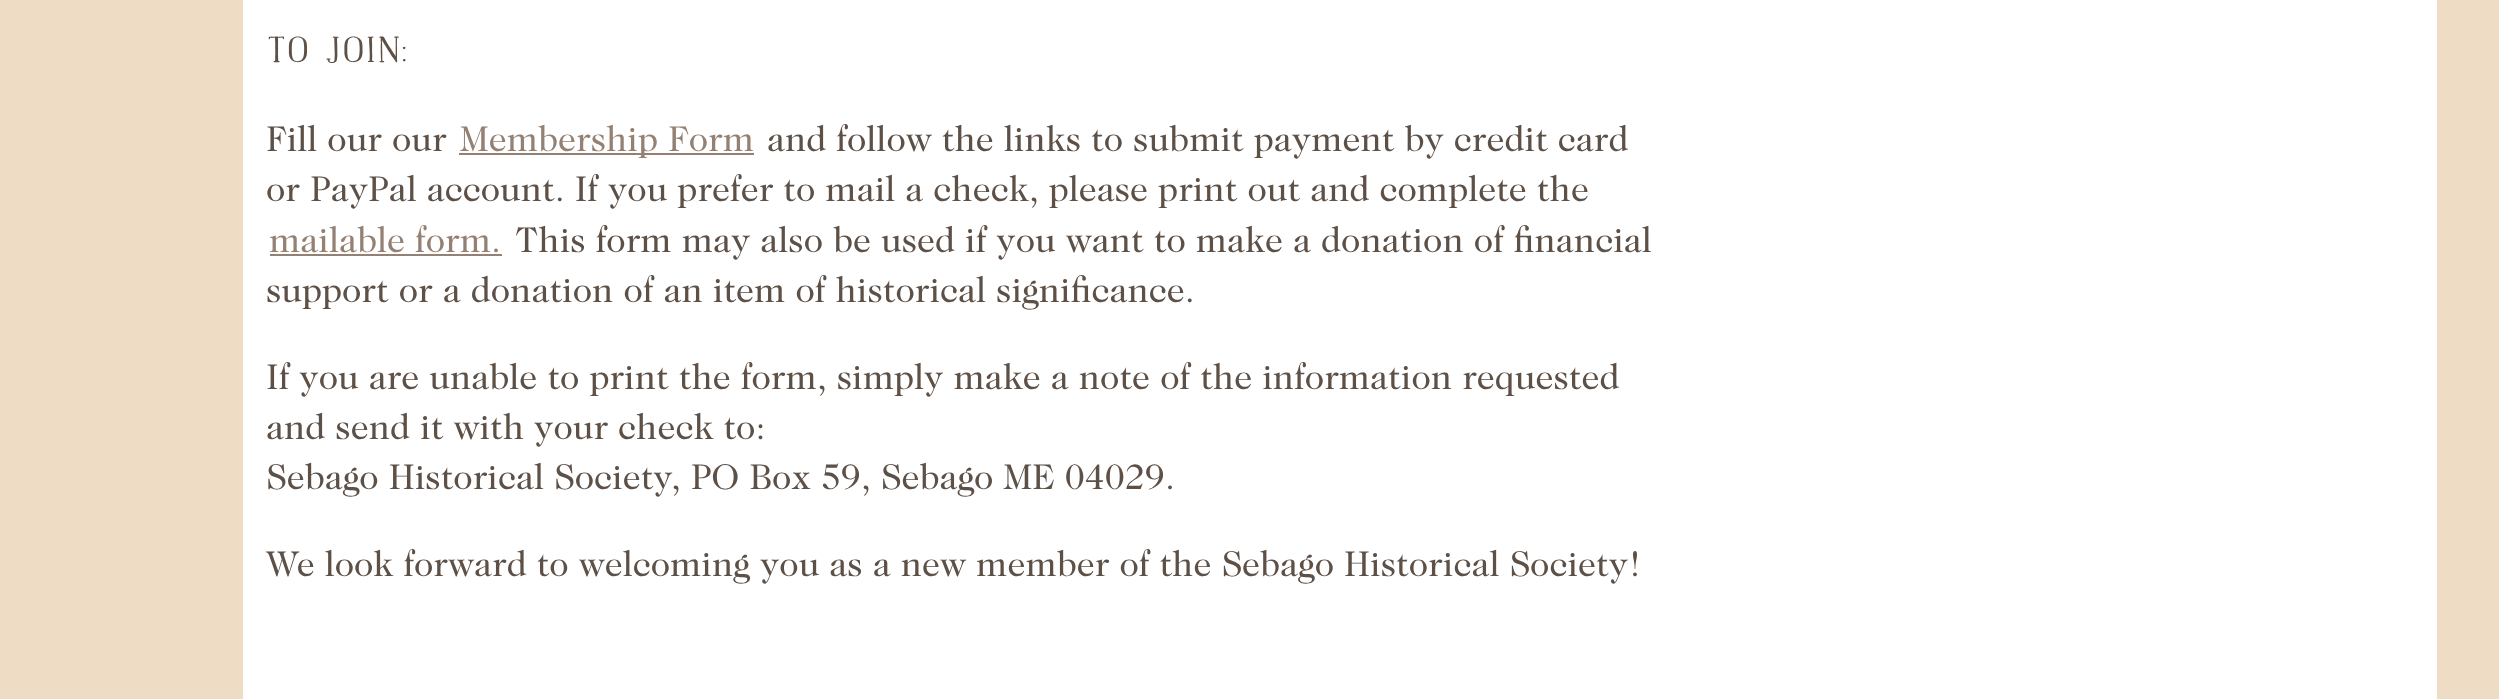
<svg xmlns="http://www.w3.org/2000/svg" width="2499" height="699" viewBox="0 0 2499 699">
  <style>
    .t1 { font: bold 34px 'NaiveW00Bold'; fill: #5d5047; }
    .t2 { font: 36px 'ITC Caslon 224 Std'; fill: #5d5047; }
    .t3 { font: 36px 'ITC Caslon 224 Std'; fill: #948173; }
  </style>
  <rect width="100%" height="100%" fill="#eeddc4"/>
  <rect x="243" y="0" width="2194" height="699" fill="#fff"/>
  <text x="266" y="62" class="t1">TO JOIN:</text>
  <text x="266" y="151" class="t2">Fill our our</text>
  <rect x="459" y="153" width="295" height="2" fill="#948173"/>
  <text x="460" y="151" class="t3">Membership Form</text>
  <text x="767" y="151" class="t2">and follow the links to submit payment by credit card</text>
  <text x="266" y="201" class="t2">or PayPal account. If you prefer to mail a check, please print out and complete the</text>
  <text x="269" y="252" class="t3">mailable form.</text>
  <rect x="270" y="254" width="232" height="2" fill="#948173"/>
  <text x="515" y="252" class="t2">This form may also be used if you want to make a donation of financial</text>
  <text x="266" y="302" class="t2">support or a donation of an item of historical significance.</text>
  <text x="266" y="389" class="t2">If you are unable to print the form, simply make a note of the information requested</text>
  <text x="266" y="439" class="t2">and send it with your check to:</text>
  <text x="266" y="489" class="t2">Sebago Historical Society, PO Box 59, Sebago ME 04029.</text>
  <text x="266" y="576" class="t2">We look forward to welcoming you as a new member of the Sebago Historical Society!</text>
</svg>
